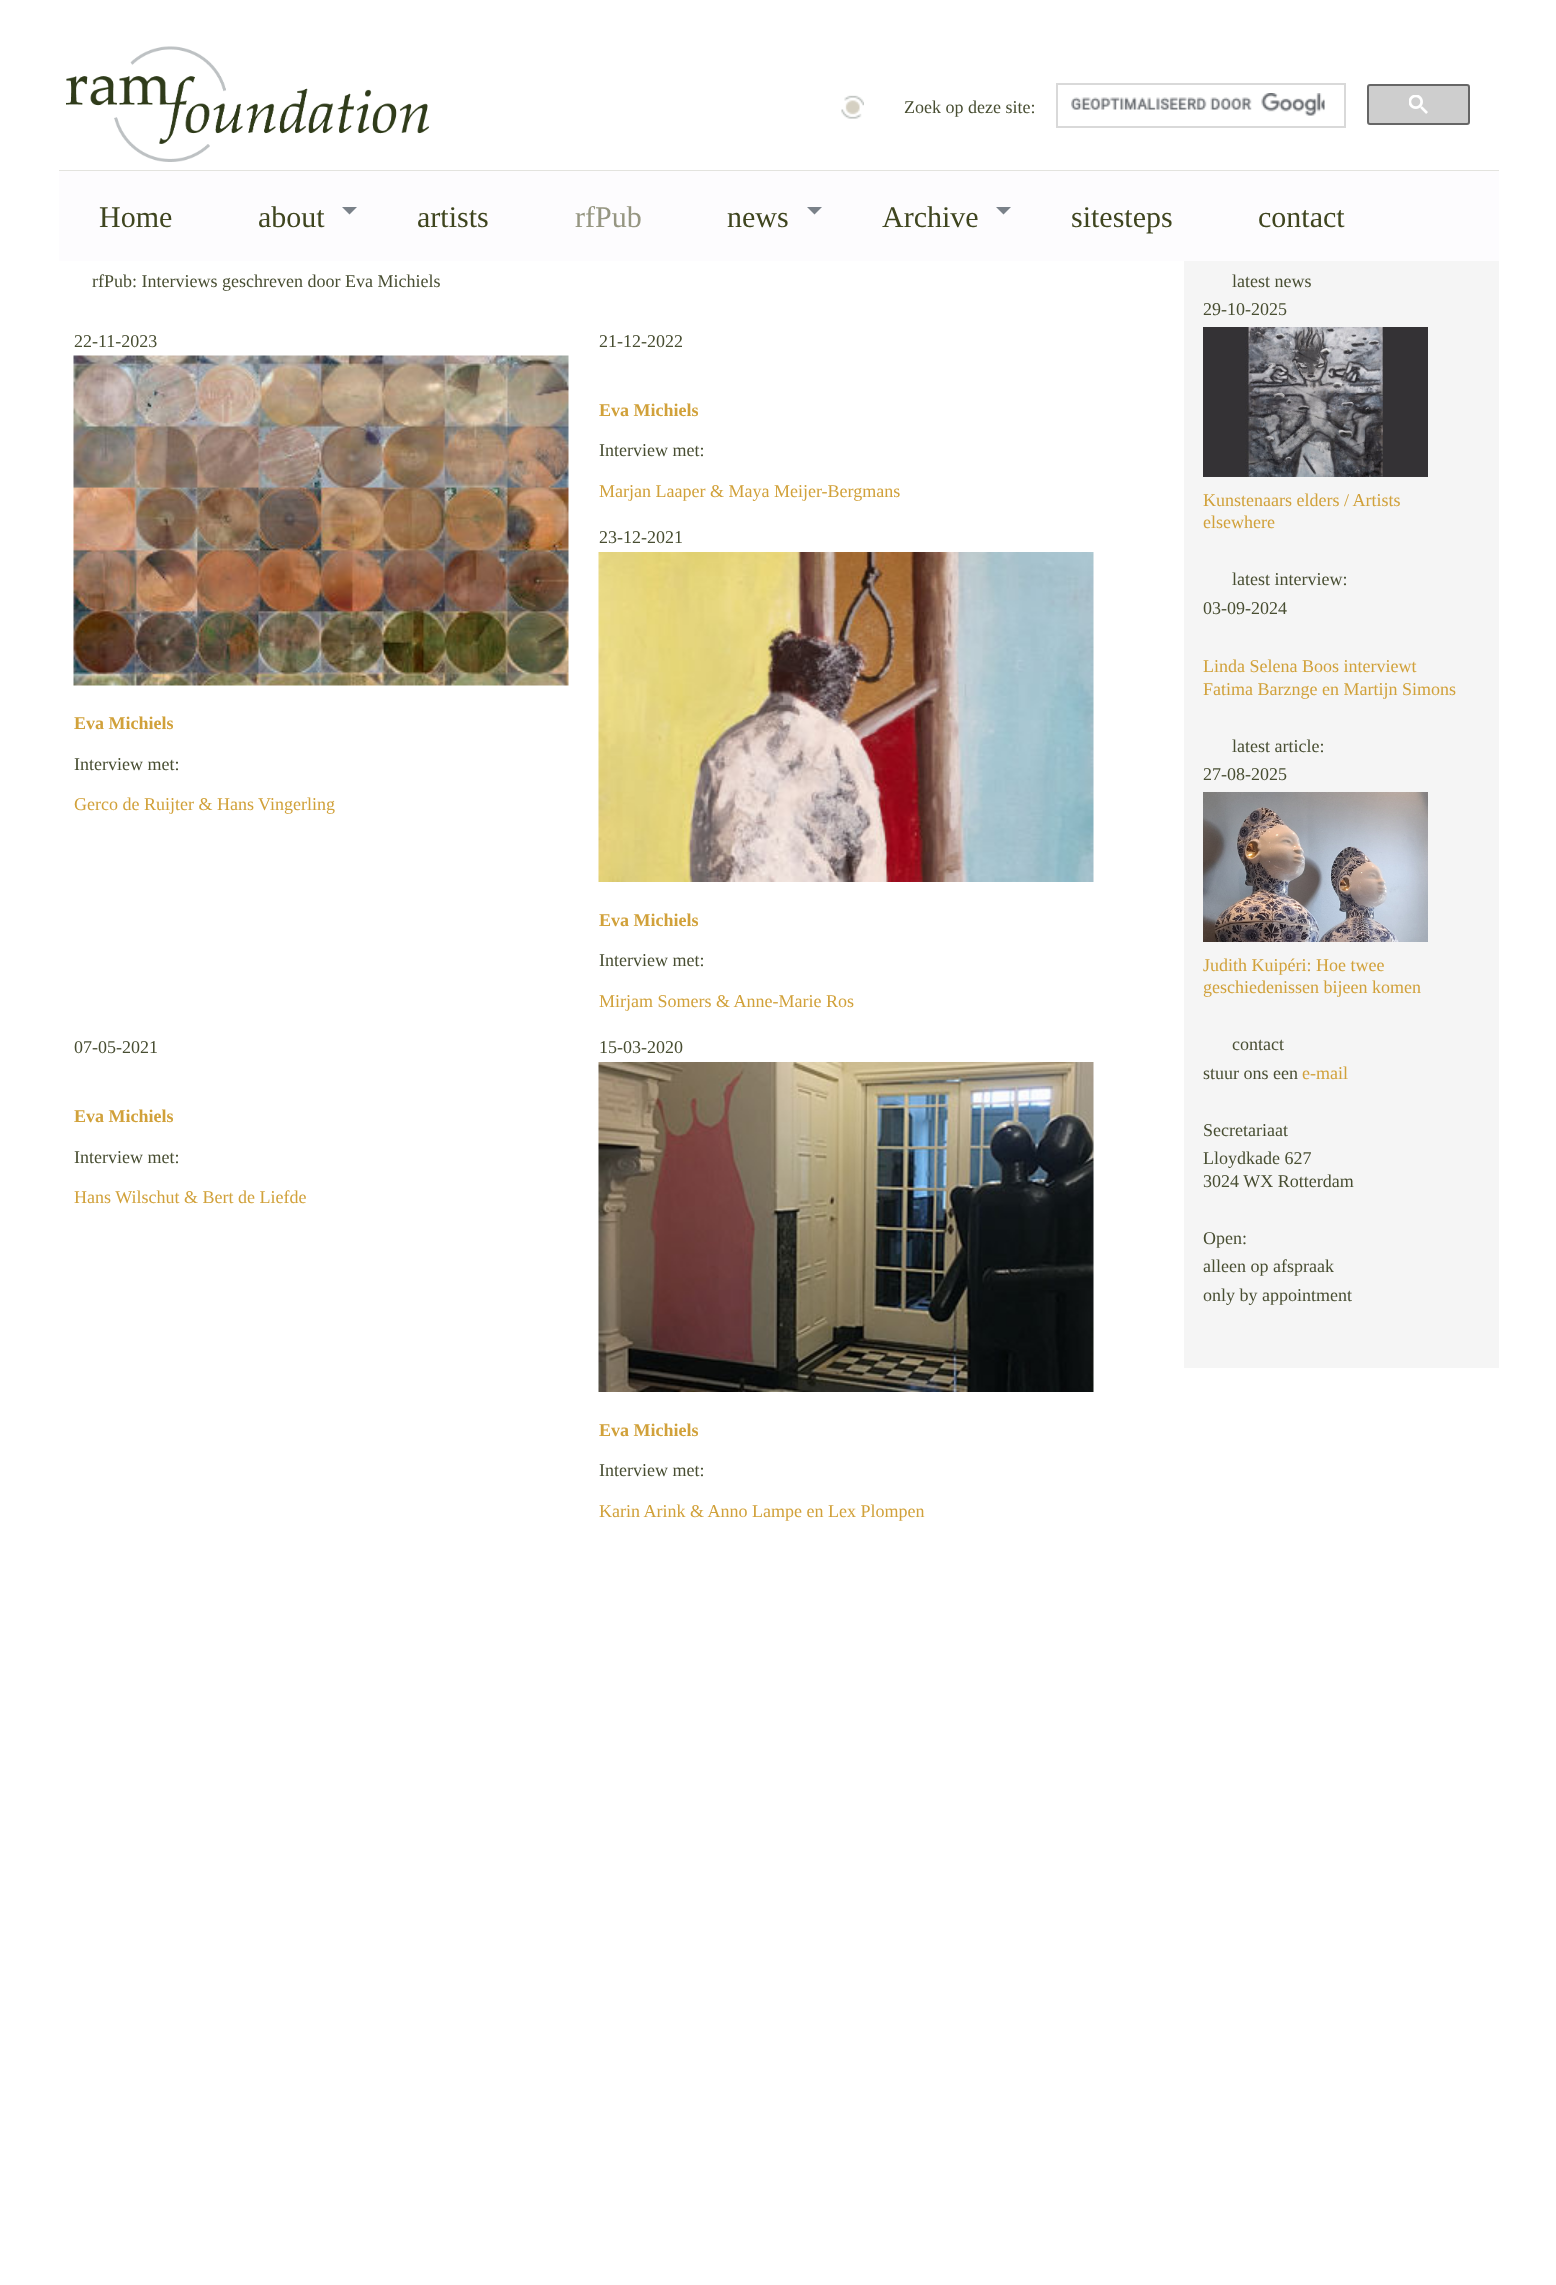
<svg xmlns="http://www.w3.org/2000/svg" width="1556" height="2285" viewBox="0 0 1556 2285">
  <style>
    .t1 { font: 18px Liberation Serif; fill: #484e32; }
    .t2 { font: 30px Liberation Serif; fill: #3f451f; }
    .t3 { font: 30px Liberation Serif; fill: #969682; }
    .t4 { font: bold 18px Liberation Serif; fill: #d1a13a; }
    .t5 { font: 18px Liberation Serif; fill: #d1a13a; }
  </style>
  <rect width="100%" height="100%" fill="#fff"/>
  <image x="66" y="46" width="363" height="116" href="images/1.png"/>
  <image x="841" y="95" width="23" height="24" href="images/2.png"/>
  <text x="904" y="113" class="t1">Zoek op deze site:</text>
  <rect x="1057" y="84" width="288" height="43" fill="none" stroke="#d9d9d9" stroke-width="2"/>
  <image x="1071" y="93" width="254" height="23" href="images/3.png"/>
  <rect x="1368" y="85" width="101" height="39" rx="2" fill="#cecece" stroke="#666" stroke-width="2"/>
  <image x="1409" y="95" width="19" height="19" href="images/4.png"/>
  <rect x="59" y="170" width="1440" height="1" fill="#e3e3de"/>
  <rect x="59" y="171" width="1440" height="90" fill="#fdfcfe"/>
  <text x="99" y="227" class="t2">Home</text>
  <text x="258" y="227" class="t2">about</text>
  <path d="M342 207H357L349.5 214.5Z" fill="#7a8189"/>
  <text x="417" y="227" class="t2">artists</text>
  <text x="575" y="227" class="t3">rfPub</text>
  <path d="M807 207H822L814.5 214.5Z" fill="#7a8189"/>
  <text x="727" y="227" class="t2">news</text>
  <text x="882" y="227" class="t2">Archive</text>
  <path d="M996 207H1011L1003.5 214.5Z" fill="#7a8189"/>
  <text x="1071" y="227" class="t2">sitesteps</text>
  <text x="1258" y="227" class="t2">contact</text>
  <text x="92" y="287" class="t1">rfPub: Interviews geschreven door Eva Michiels</text>
  <text x="74" y="347" class="t1">22-11-2023</text>
  <image x="73" y="355" width="496" height="331" href="images/5.png"/>
  <text x="74" y="729" class="t4">Eva Michiels</text>
  <text x="74" y="770" class="t1">Interview met:</text>
  <text x="74" y="810" class="t5">Gerco de Ruijter &amp; Hans Vingerling</text>
  <text x="599" y="347" class="t1">21-12-2022</text>
  <text x="599" y="416" class="t4">Eva Michiels</text>
  <text x="599" y="456" class="t1">Interview met:</text>
  <text x="599" y="497" class="t5">Marjan Laaper &amp; Maya Meijer-Bergmans</text>
  <text x="599" y="543" class="t1">23-12-2021</text>
  <image x="598" y="552" width="496" height="330" href="images/6.png"/>
  <text x="599" y="926" class="t4">Eva Michiels</text>
  <text x="599" y="966" class="t1">Interview met:</text>
  <text x="599" y="1007" class="t5">Mirjam Somers &amp; Anne-Marie Ros</text>
  <text x="74" y="1053" class="t1">07-05-2021</text>
  <text x="74" y="1122" class="t4">Eva Michiels</text>
  <text x="74" y="1163" class="t1">Interview met:</text>
  <text x="74" y="1203" class="t5">Hans Wilschut &amp; Bert de Liefde</text>
  <text x="599" y="1053" class="t1">15-03-2020</text>
  <image x="598" y="1062" width="496" height="330" href="images/7.png"/>
  <text x="599" y="1436" class="t4">Eva Michiels</text>
  <text x="599" y="1476" class="t1">Interview met:</text>
  <text x="599" y="1517" class="t5">Karin Arink &amp; Anno Lampe en Lex Plompen</text>
  <rect x="1184" y="261" width="315" height="1107" fill="#f5f5f5"/>
  <text x="1232" y="287" class="t1">latest news</text>
  <text x="1203" y="315" class="t1">29-10-2025</text>
  <image x="1203" y="327" width="225" height="150" href="images/8.png"/>
  <text x="1203" y="506" class="t5">Kunstenaars elders / Artists</text>
  <text x="1203" y="528" class="t5">elsewhere</text>
  <text x="1232" y="585" class="t1">latest interview:</text>
  <text x="1203" y="614" class="t1">03-09-2024</text>
  <text x="1203" y="672" class="t5">Linda Selena Boos interviewt</text>
  <text x="1203" y="695" class="t5">Fatima Barznge en Martijn Simons</text>
  <text x="1232" y="752" class="t1">latest article:</text>
  <text x="1203" y="780" class="t1">27-08-2025</text>
  <image x="1203" y="792" width="225" height="150" href="images/9.png"/>
  <text x="1203" y="971" class="t5">Judith Kuipéri: Hoe twee</text>
  <text x="1203" y="993" class="t5">geschiedenissen bijeen komen</text>
  <text x="1232" y="1050" class="t1">contact</text>
  <text x="1203" y="1079" class="t1">stuur ons een</text>
  <text x="1302" y="1079" class="t5">e-mail</text>
  <text x="1203" y="1136" class="t1">Secretariaat</text>
  <text x="1203" y="1164" class="t1">Lloydkade 627</text>
  <text x="1203" y="1187" class="t1">3024 WX Rotterdam</text>
  <text x="1203" y="1244" class="t1">Open:</text>
  <text x="1203" y="1272" class="t1">alleen op afspraak</text>
  <text x="1203" y="1301" class="t1">only by appointment</text>
</svg>
